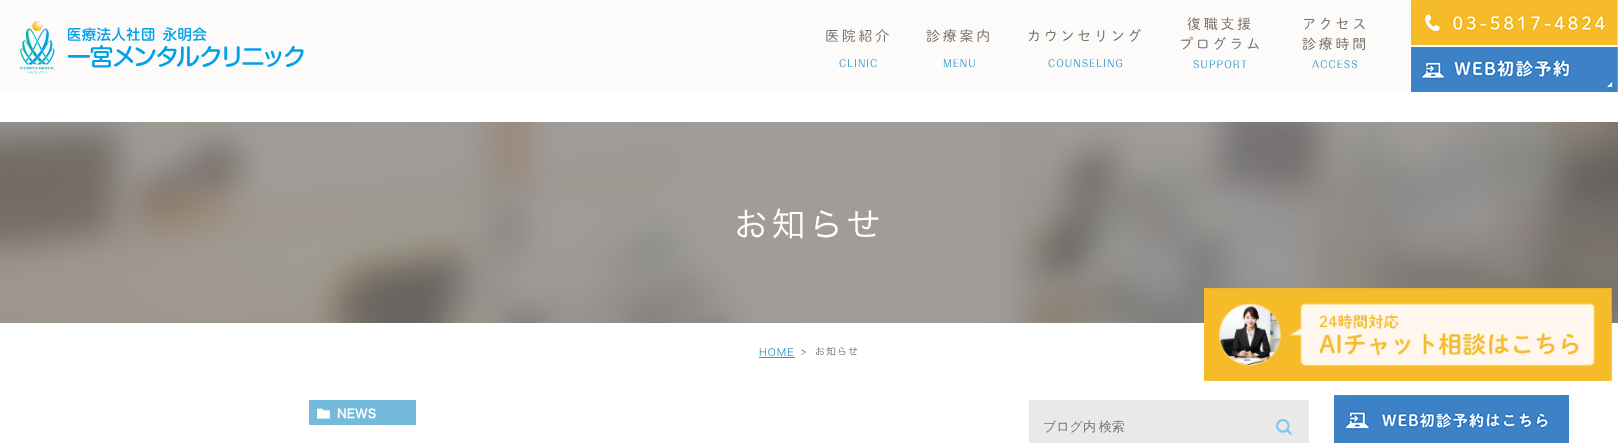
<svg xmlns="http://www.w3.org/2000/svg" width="1618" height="443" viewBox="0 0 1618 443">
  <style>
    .t1 { font: 14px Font; letter-spacing: 2.75px; fill: #77716c; }
    .t2 { font: 10px 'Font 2'; letter-spacing: 1px; fill: #2f98c7; }
    .t3 { font: 300 34px Font; letter-spacing: 3.5px; fill: #fff; }
    .t4 { font: 300 10px Font; letter-spacing: 1px; fill: #2f98c7; }
    .t5 { font: 300 10px Font; letter-spacing: 1px; fill: #77716c; }
    .t6 { font: 600 12px Font; fill: #fff; }
    .t7 { font: 500 13px WenQuanYi Zen Hei; fill: #757575; }
  </style>
  <rect width="100%" height="100%" fill="#fff"/>
  <rect x="0" y="0" width="1618" height="90" fill="#fcfbfa"/>
  <image x="20" y="21" width="284" height="53" href="images/1.png"/>
  <text x="825" y="41" class="t1">医院紹介</text>
  <text x="839" y="67" class="t2">CLINIC</text>
  <text x="926" y="41" class="t1">診療案内</text>
  <text x="943" y="67" class="t2">MENU</text>
  <text x="1027" y="41" class="t1">カウンセリング</text>
  <text x="1048" y="67" class="t2">COUNSELING</text>
  <text x="1187" y="29" class="t1">復職支援</text>
  <text x="1179" y="49" class="t1">プログラム</text>
  <text x="1193" y="68" class="t2">SUPPORT</text>
  <text x="1302" y="29" class="t1">アクセス</text>
  <text x="1302" y="49" class="t1">診療時間</text>
  <text x="1312" y="68" class="t2">ACCESS</text>
  <image x="1411" y="0" width="207" height="45" href="images/2.png"/>
  <image x="1411" y="47" width="207" height="45" href="images/3.png"/>
  <image x="0" y="122" width="1618" height="201" href="images/4.png"/>
  <text x="734" y="237" class="t3">お知らせ</text>
  <text x="759" y="356" class="t4">HOME</text>
  <rect x="759" y="357" width="36" height="1" fill="#2f98c7"/>
  <text x="801" y="355" class="t5">&gt;</text>
  <text x="815" y="355" class="t5">お知らせ</text>
  <image x="1204" y="287" width="408" height="94" href="images/5.png"/>
  <rect x="309" y="400" width="107" height="25" fill="#74bbdb"/>
  <image x="317" y="408" width="13" height="11" href="images/6.png"/>
  <text x="337" y="418" class="t6">NEWS</text>
  <rect x="1029" y="400" width="280" height="43" fill="#ebe9e7"/>
  <text x="1043" y="431" word-spacing="-1" class="t7">ブログ内 検索</text>
  <image x="1276" y="419" width="16" height="16" href="images/7.png"/>
  <image x="1334" y="395" width="235" height="48" href="images/8.png"/>
</svg>
